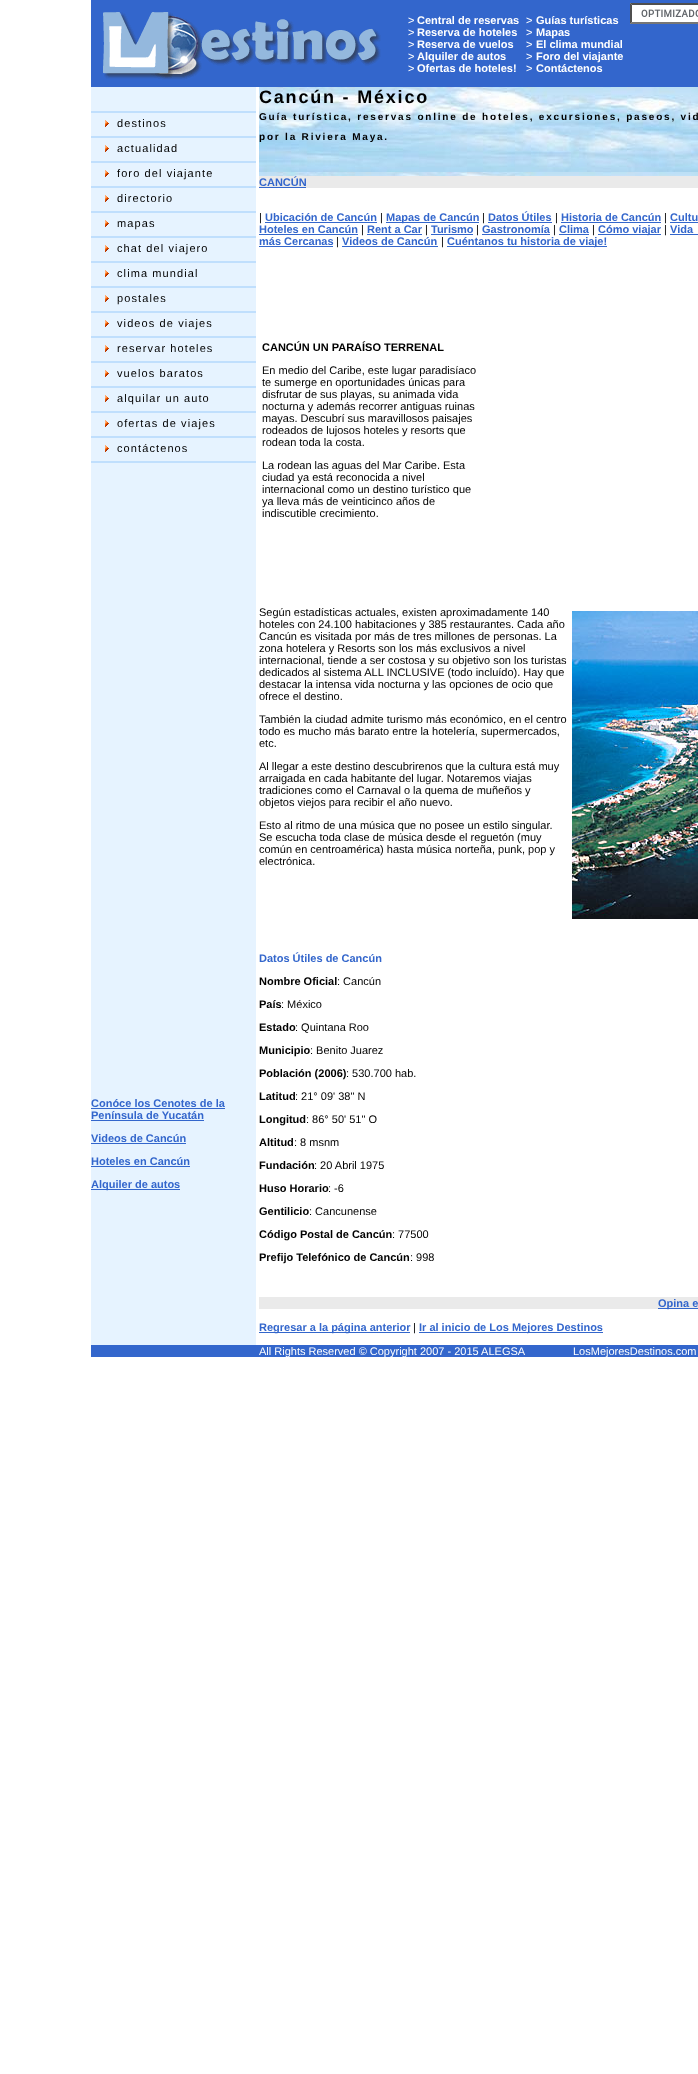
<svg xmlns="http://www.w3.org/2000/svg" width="698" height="2074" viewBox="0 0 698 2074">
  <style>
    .t1 { font: 11px Liberation Sans; fill: #fff; }
    .t2 { font: bold 11px Liberation Sans; fill: #fff; }
    .t3 { font: 11px Liberation Sans; letter-spacing: 1.1px; fill: #000; }
    .t4 { font: bold 11px Liberation Sans; fill: #36c; }
    .t5 { font: bold 18px Liberation Sans; letter-spacing: 1.8px; fill: #000; }
    .t6 { font: bold 10px Liberation Sans; letter-spacing: 1.8px; fill: #000; }
    .t7 { font: 11px Liberation Sans; fill: #000; }
    .t8 { font: bold 11px Liberation Sans; fill: #000; }
  </style>
  <rect width="100%" height="100%" fill="#fff"/>
  <rect x="91" y="0" width="607" height="87" fill="#36c"/>
  <image x="103" y="12" width="278" height="68" href="images/1.png"/>
  <text x="408" y="24" class="t1">&gt;</text>
  <text x="417" y="24" class="t2">Central de reservas</text>
  <text x="408" y="36" class="t1">&gt;</text>
  <text x="417" y="36" class="t2">Reserva de hoteles</text>
  <text x="408" y="48" class="t1">&gt;</text>
  <text x="417" y="48" class="t2">Reserva de vuelos</text>
  <text x="408" y="60" class="t1">&gt;</text>
  <text x="417" y="60" class="t2">Alquiler de autos</text>
  <text x="408" y="72" class="t1">&gt;</text>
  <text x="417" y="72" class="t2">Ofertas de hoteles!</text>
  <text x="526" y="24" class="t1">&gt;</text>
  <text x="536" y="24" class="t2">Guías turísticas</text>
  <text x="526" y="36" class="t1">&gt;</text>
  <text x="536" y="36" class="t2">Mapas</text>
  <text x="526" y="48" class="t1">&gt;</text>
  <text x="536" y="48" class="t2">El clima mundial</text>
  <text x="526" y="60" class="t1">&gt;</text>
  <text x="536" y="60" class="t2">Foro del viajante</text>
  <text x="526" y="72" class="t1">&gt;</text>
  <text x="536" y="72" class="t2">Contáctenos</text>
  <rect x="630" y="3" width="68" height="21" fill="#fff"/>
  <image x="641" y="9" width="57" height="8" href="images/2.png"/>
  <path d="M630 3H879L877 5H632Z" fill="#4f4f4f"/>
  <path d="M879 24H630L632 22H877Z" fill="#767676"/>
  <path d="M630 24V3L632 5V22Z" fill="#4f4f4f"/>
  <rect x="91" y="87" width="165" height="1258" fill="#e6f3ff"/>
  <rect x="91" y="111" width="165" height="2" fill="#c0dffd"/>
  <rect x="91" y="136" width="165" height="2" fill="#c0dffd"/>
  <image x="105" y="120" width="4" height="7" href="images/3.png"/>
  <text x="117" y="127" class="t3">destinos</text>
  <rect x="91" y="161" width="165" height="2" fill="#c0dffd"/>
  <image x="105" y="145" width="4" height="7" href="images/3.png"/>
  <text x="117" y="152" class="t3">actualidad</text>
  <rect x="91" y="186" width="165" height="2" fill="#c0dffd"/>
  <image x="105" y="170" width="4" height="7" href="images/3.png"/>
  <text x="117" y="177" class="t3">foro del viajante</text>
  <rect x="91" y="211" width="165" height="2" fill="#c0dffd"/>
  <image x="105" y="195" width="4" height="7" href="images/3.png"/>
  <text x="117" y="202" class="t3">directorio</text>
  <rect x="91" y="236" width="165" height="2" fill="#c0dffd"/>
  <image x="105" y="220" width="4" height="7" href="images/3.png"/>
  <text x="117" y="227" class="t3">mapas</text>
  <rect x="91" y="261" width="165" height="2" fill="#c0dffd"/>
  <image x="105" y="245" width="4" height="7" href="images/3.png"/>
  <text x="117" y="252" class="t3">chat del viajero</text>
  <rect x="91" y="286" width="165" height="2" fill="#c0dffd"/>
  <image x="105" y="270" width="4" height="7" href="images/3.png"/>
  <text x="117" y="277" class="t3">clima mundial</text>
  <rect x="91" y="311" width="165" height="2" fill="#c0dffd"/>
  <image x="105" y="295" width="4" height="7" href="images/3.png"/>
  <text x="117" y="302" class="t3">postales</text>
  <rect x="91" y="336" width="165" height="2" fill="#c0dffd"/>
  <image x="105" y="320" width="4" height="7" href="images/3.png"/>
  <text x="117" y="327" class="t3">videos de viajes</text>
  <rect x="91" y="361" width="165" height="2" fill="#c0dffd"/>
  <image x="105" y="345" width="4" height="7" href="images/3.png"/>
  <text x="117" y="352" class="t3">reservar hoteles</text>
  <rect x="91" y="386" width="165" height="2" fill="#c0dffd"/>
  <image x="105" y="370" width="4" height="7" href="images/3.png"/>
  <text x="117" y="377" class="t3">vuelos baratos</text>
  <rect x="91" y="411" width="165" height="2" fill="#c0dffd"/>
  <image x="105" y="395" width="4" height="7" href="images/3.png"/>
  <text x="117" y="402" class="t3">alquilar un auto</text>
  <rect x="91" y="436" width="165" height="2" fill="#c0dffd"/>
  <image x="105" y="420" width="4" height="7" href="images/3.png"/>
  <text x="117" y="427" class="t3">ofertas de viajes</text>
  <rect x="91" y="461" width="165" height="2" fill="#c0dffd"/>
  <image x="105" y="445" width="4" height="7" href="images/3.png"/>
  <text x="117" y="452" class="t3">contáctenos</text>
  <text x="91" y="1107" class="t4">Conóce los Cenotes de la</text>
  <rect x="91" y="1108" width="134" height="1" fill="#36c"/>
  <text x="91" y="1119" class="t4">Península de Yucatán</text>
  <rect x="91" y="1120" width="113" height="1" fill="#36c"/>
  <text x="91" y="1142" class="t4">Videos de Cancún</text>
  <rect x="91" y="1143" width="95" height="1" fill="#36c"/>
  <text x="91" y="1165" class="t4">Hoteles en Cancún</text>
  <rect x="91" y="1166" width="99" height="1" fill="#36c"/>
  <rect x="91" y="1189" width="89" height="1" fill="#36c"/>
  <text x="91" y="1188" class="t4">Alquiler de autos</text>
  <image x="259" y="87" width="439" height="89" href="images/4.png"/>
  <text x="259" y="103" class="t5">Cancún - México</text>
  <text x="259" y="120" class="t6">Guía turística, reservas online de hoteles, excursiones, paseos, vid</text>
  <text x="259" y="140" class="t6">por la Riviera Maya.</text>
  <rect x="259" y="176" width="439" height="12" fill="#eaeaea"/>
  <text x="259" y="186" class="t4">CANCÚN</text>
  <rect x="259" y="187" width="47" height="1" fill="#36c"/>
  <text x="259" y="221" class="t7">|</text>
  <text x="265" y="221" class="t4">Ubicación de Cancún</text>
  <rect x="265" y="222" width="112" height="1" fill="#36c"/>
  <text x="380" y="221" class="t7">|</text>
  <rect x="386" y="222" width="93" height="1" fill="#36c"/>
  <text x="386" y="221" class="t4">Mapas de Cancún</text>
  <text x="482" y="221" class="t7">|</text>
  <text x="488" y="221" class="t4">Datos Útiles</text>
  <rect x="488" y="222" width="64" height="1" fill="#36c"/>
  <text x="555" y="221" class="t7">|</text>
  <text x="561" y="221" class="t4">Historia de Cancún</text>
  <rect x="561" y="222" width="100" height="1" fill="#36c"/>
  <text x="664" y="221" class="t7">|</text>
  <text x="670" y="221" class="t4">Cultu</text>
  <rect x="670" y="222" width="28" height="1" fill="#36c"/>
  <text x="259" y="233" class="t4">Hoteles en Cancún</text>
  <rect x="259" y="234" width="99" height="1" fill="#36c"/>
  <text x="361" y="233" class="t7">|</text>
  <text x="367" y="233" class="t4">Rent a Car</text>
  <rect x="367" y="234" width="55" height="1" fill="#36c"/>
  <text x="425" y="233" class="t7">|</text>
  <text x="431" y="233" class="t4">Turismo</text>
  <rect x="431" y="234" width="42" height="1" fill="#36c"/>
  <text x="476" y="233" class="t7">|</text>
  <text x="482" y="233" class="t4">Gastronomía</text>
  <rect x="482" y="234" width="68" height="1" fill="#36c"/>
  <text x="553" y="233" class="t7">|</text>
  <text x="559" y="233" class="t4">Clima</text>
  <rect x="559" y="234" width="30" height="1" fill="#36c"/>
  <text x="592" y="233" class="t7">|</text>
  <rect x="598" y="234" width="63" height="1" fill="#36c"/>
  <text x="598" y="233" class="t4">Cómo viajar</text>
  <text x="664" y="233" class="t7">|</text>
  <text x="670" y="233" class="t4">Vida</text>
  <rect x="670" y="234" width="28" height="1" fill="#36c"/>
  <text x="259" y="245" class="t4">más Cercanas</text>
  <rect x="259" y="246" width="74" height="1" fill="#36c"/>
  <text x="336" y="245" class="t7">|</text>
  <text x="342" y="245" class="t4">Videos de Cancún</text>
  <rect x="342" y="246" width="96" height="1" fill="#36c"/>
  <text x="441" y="245" class="t7">|</text>
  <rect x="447" y="246" width="160" height="1" fill="#36c"/>
  <text x="447" y="245" class="t4">Cuéntanos tu historia de viaje!</text>
  <text x="262" y="351" class="t8">CANCÚN UN PARAÍSO TERRENAL</text>
  <text x="262" y="374" class="t7">En medio del Caribe, este lugar paradisíaco</text>
  <text x="262" y="386" class="t7">te sumerge en oportunidades únicas para</text>
  <text x="262" y="398" class="t7">disfrutar de sus playas, su animada vida</text>
  <text x="262" y="410" class="t7">nocturna y además recorrer antiguas ruinas</text>
  <text x="262" y="422" class="t7">mayas. Descubrí sus maravillosos paisajes</text>
  <text x="262" y="434" class="t7">rodeados de lujosos hoteles y resorts que</text>
  <text x="262" y="446" class="t7">rodean toda la costa.</text>
  <text x="262" y="469" class="t7">La rodean las aguas del Mar Caribe. Esta</text>
  <text x="262" y="481" class="t7">ciudad ya está reconocida a nivel</text>
  <text x="262" y="493" class="t7">internacional como un destino turístico que</text>
  <text x="262" y="505" class="t7">ya lleva más de veinticinco años de</text>
  <text x="262" y="517" class="t7">indiscutible crecimiento.</text>
  <text x="259" y="616" class="t7">Según estadísticas actuales, existen aproximadamente 140</text>
  <image x="572" y="611" width="126" height="308" href="images/5.png"/>
  <text x="259" y="628" class="t7">hoteles con 24.100 habitaciones y 385 restaurantes. Cada año</text>
  <text x="259" y="640" class="t7">Cancún es visitada por más de tres millones de personas. La</text>
  <text x="259" y="652" class="t7">zona hotelera y Resorts son los más exclusivos a nivel</text>
  <text x="259" y="664" class="t7">internacional, tiende a ser costosa y su objetivo son los turistas</text>
  <text x="259" y="676" class="t7">dedicados al sistema ALL INCLUSIVE (todo incluído). Hay que</text>
  <text x="259" y="688" class="t7">destacar la intensa vida nocturna y las opciones de ocio que</text>
  <text x="259" y="700" class="t7">ofrece el destino.</text>
  <text x="259" y="723" class="t7">También la ciudad admite turismo más económico, en el centro</text>
  <text x="259" y="735" class="t7">todo es mucho más barato entre la hotelería, supermercados,</text>
  <text x="259" y="747" class="t7">etc.</text>
  <text x="259" y="770" class="t7">Al llegar a este destino descubrirenos que la cultura está muy</text>
  <text x="259" y="782" class="t7">arraigada en cada habitante del lugar. Notaremos viajas</text>
  <text x="259" y="794" class="t7">tradiciones como el Carnaval o la quema de muñeños y</text>
  <text x="259" y="806" class="t7">objetos viejos para recibir el año nuevo.</text>
  <text x="259" y="829" class="t7">Esto al ritmo de una música que no posee un estilo singular.</text>
  <text x="259" y="841" class="t7">Se escucha toda clase de música desde el reguetón (muy</text>
  <text x="259" y="853" class="t7">común en centroamérica) hasta música norteña, punk, pop y</text>
  <text x="259" y="865" class="t7">electrónica.</text>
  <text x="259" y="962" class="t4">Datos Útiles de Cancún</text>
  <text x="259" y="985" class="t8">Nombre Oficial</text>
  <text x="337" y="985" class="t7">: Cancún</text>
  <text x="259" y="1008" class="t8">País</text>
  <text x="281" y="1008" class="t7">: México</text>
  <text x="259" y="1031" class="t8">Estado</text>
  <text x="295" y="1031" class="t7">: Quintana Roo</text>
  <text x="259" y="1054" class="t8">Municipio</text>
  <text x="310" y="1054" class="t7">: Benito Juarez</text>
  <text x="259" y="1077" class="t8">Población (2006)</text>
  <text x="346" y="1077" class="t7">: 530.700 hab.</text>
  <text x="259" y="1100" class="t8">Latitud</text>
  <text x="295" y="1100" class="t7">: 21° 09' 38" N</text>
  <text x="259" y="1123" class="t8">Longitud</text>
  <text x="306" y="1123" class="t7">: 86° 50' 51" O</text>
  <text x="259" y="1146" class="t8">Altitud</text>
  <text x="294" y="1146" class="t7">: 8 msnm</text>
  <text x="259" y="1169" class="t8">Fundación</text>
  <text x="314" y="1169" class="t7">: 20 Abril 1975</text>
  <text x="259" y="1192" class="t8">Huso Horario</text>
  <text x="328" y="1192" class="t7">: -6</text>
  <text x="259" y="1215" class="t8">Gentilicio</text>
  <text x="309" y="1215" class="t7">: Cancunense</text>
  <text x="259" y="1238" class="t8">Código Postal de Cancún</text>
  <text x="392" y="1238" class="t7">: 77500</text>
  <text x="259" y="1261" class="t8">Prefijo Telefónico de Cancún</text>
  <text x="410" y="1261" class="t7">: 998</text>
  <rect x="259" y="1297" width="439" height="12" fill="#eaeaea"/>
  <rect x="658" y="1308" width="40" height="1" fill="#36c"/>
  <text x="658" y="1307" class="t4">Opina e</text>
  <rect x="259" y="1332" width="151" height="1" fill="#36c"/>
  <text x="259" y="1331" class="t4">Regresar a la página anterior</text>
  <text x="413" y="1331" class="t7">|</text>
  <rect x="419" y="1332" width="184" height="1" fill="#36c"/>
  <text x="419" y="1331" class="t4">Ir al inicio de Los Mejores Destinos</text>
  <rect x="91" y="1345" width="607" height="12" fill="#36c"/>
  <text x="259" y="1355" class="t1">All Rights Reserved © Copyright 2007 - 2015 ALEGSA</text>
  <text x="573" y="1355" class="t1">LosMejoresDestinos.com</text>
</svg>
